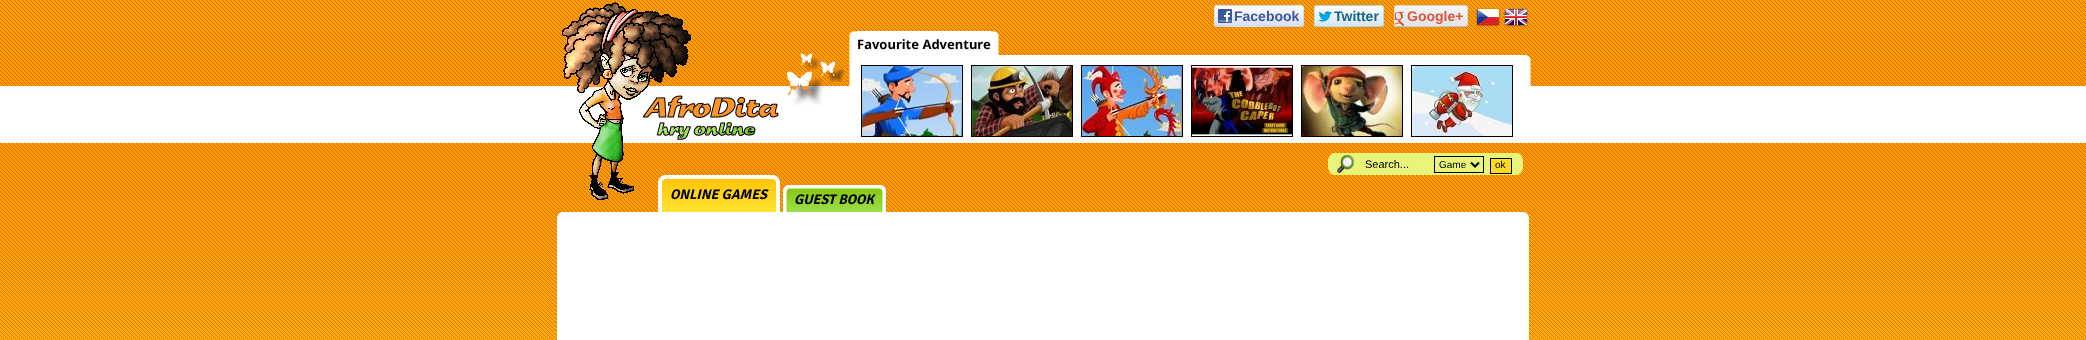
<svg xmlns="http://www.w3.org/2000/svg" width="2086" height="340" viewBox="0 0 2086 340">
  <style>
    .t1 { font: bold 14px Liberation Sans; fill: #3b5998; }
    .t2 { font: bold 14px Liberation Sans; fill: #186487; }
    .t3 { font: bold 14px Liberation Sans; fill: #da573b; }
    .t4 { font: bold 13px Noto Sans; fill: #000; }
    .t5 { font: 11px Liberation Sans; fill: #000; }
    .t6 { font: 10px Liberation Sans; fill: #000; }
    .t7 { font: italic 300 14px Signika Negative; fill: #000; }
  </style>
  <defs>
    <clipPath id="clip1"><rect x="1214" y="5" width="90" height="22" rx="3"/></clipPath>
    <linearGradient id="g1" gradientUnits="userSpaceOnUse" x1="1259" y1="-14" x2="1259" y2="6"><stop offset="0" stop-color="#fff"/><stop offset="1" stop-color="#d8def4"/></linearGradient>
    <linearGradient id="g2" gradientUnits="userSpaceOnUse" x1="1259" y1="6" x2="1259" y2="26"><stop offset="0" stop-color="#fff"/><stop offset="1" stop-color="#d8def4"/></linearGradient>
    <linearGradient id="g3" gradientUnits="userSpaceOnUse" x1="1259" y1="26" x2="1259" y2="46"><stop offset="0" stop-color="#fff"/><stop offset="1" stop-color="#d8def4"/></linearGradient>
    <clipPath id="clip2"><rect x="1314" y="5" width="70" height="22" rx="3"/></clipPath>
    <linearGradient id="g4" gradientUnits="userSpaceOnUse" x1="1349" y1="-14" x2="1349" y2="6"><stop offset="0" stop-color="#fff"/><stop offset="1" stop-color="#d5e6ef"/></linearGradient>
    <linearGradient id="g5" gradientUnits="userSpaceOnUse" x1="1349" y1="6" x2="1349" y2="26"><stop offset="0" stop-color="#fff"/><stop offset="1" stop-color="#d5e6ef"/></linearGradient>
    <linearGradient id="g6" gradientUnits="userSpaceOnUse" x1="1349" y1="26" x2="1349" y2="46"><stop offset="0" stop-color="#fff"/><stop offset="1" stop-color="#d5e6ef"/></linearGradient>
    <clipPath id="clip3"><rect x="1394" y="5" width="74" height="22" rx="3"/></clipPath>
    <linearGradient id="g7" gradientUnits="userSpaceOnUse" x1="1431" y1="-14" x2="1431" y2="6"><stop offset="0" stop-color="#f5f5f5"/><stop offset="1" stop-color="#e4e4e4"/></linearGradient>
    <linearGradient id="g8" gradientUnits="userSpaceOnUse" x1="1431" y1="6" x2="1431" y2="26"><stop offset="0" stop-color="#f5f5f5"/><stop offset="1" stop-color="#e4e4e4"/></linearGradient>
    <linearGradient id="g9" gradientUnits="userSpaceOnUse" x1="1431" y1="26" x2="1431" y2="46"><stop offset="0" stop-color="#f5f5f5"/><stop offset="1" stop-color="#e4e4e4"/></linearGradient>
  </defs>
  <rect width="100%" height="100%" fill="#fff"/>
  <image x="0" y="0" width="2086" height="340" href="images/1.png"/>
  <image x="561" y="2" width="218" height="199" href="images/2.png"/>
  <rect x="1214" y="6" width="90" height="22" rx="3" fill="#0000000d" filter="blur(0.5px)"/>
  <g clip-path="url(#clip1)">
    <rect x="1214" y="5" width="90" height="1" fill="url(#g1)"/>
    <rect x="1214" y="6" width="90" height="20" fill="url(#g2)"/>
    <rect x="1214" y="26" width="90" height="1" fill="url(#g3)"/>
  </g>
  <path d="M1303 26L1301 26.5H1287C1279.5 26.5 1217.5 27.5 1215.5 26H1215" fill="none" stroke="#bdc2cbcc"/>
  <path d="M1215 26C1213.5 24 1214.5 20.5 1214.5 18.5C1214.5 2 1212 5.5 1231 5.5H1287C1306 5.5 1303.5 2 1303.5 18.5C1303.5 20.5 1304.5 24 1303 26" fill="none" stroke="#cad4e7cc"/>
  <image x="1218" y="9" width="14" height="14" href="images/3.png"/>
  <text x="1234" y="21" class="t1">Facebook</text>
  <rect x="1314" y="6" width="70" height="22" rx="3" fill="#0000000d" filter="blur(0.5px)"/>
  <g clip-path="url(#clip2)">
    <rect x="1314" y="5" width="70" height="1" fill="url(#g4)"/>
    <rect x="1314" y="6" width="70" height="20" fill="url(#g5)"/>
    <rect x="1314" y="26" width="70" height="1" fill="url(#g6)"/>
  </g>
  <path d="M1383 26L1381 26.5H1370.5C1364 26.5 1317.5 27.5 1315.5 26H1315" fill="none" stroke="#9ebacccc"/>
  <path d="M1315 26C1313.5 24 1314.5 20.5 1314.5 18.5C1314.5 3.5 1312 5.5 1327.5 5.5H1370.5C1386 5.5 1383.5 3.5 1383.5 18.5C1383.5 20.5 1384.5 24 1383 26" fill="none" stroke="#a4cce5cc"/>
  <image x="1318" y="11" width="14" height="11" href="images/4.png"/>
  <text x="1334" y="21" class="t2">Twitter</text>
  <rect x="1394" y="6" width="74" height="22" rx="3" fill="#0000000d" filter="blur(0.5px)"/>
  <g clip-path="url(#clip3)">
    <rect x="1394" y="5" width="74" height="1" fill="url(#g7)"/>
    <rect x="1394" y="6" width="74" height="20" fill="url(#g8)"/>
    <rect x="1394" y="26" width="74" height="1" fill="url(#g9)"/>
  </g>
  <path d="M1467 26L1465 26.5H1453.5C1447 26.5 1397.5 27.5 1395.5 26H1395" fill="none" stroke="#b3b3b3cc"/>
  <path d="M1395 26C1393.5 24 1394.5 20.5 1394.5 18.5C1394.5 3 1392 5.5 1408.5 5.5H1453.5C1470 5.5 1467.5 3 1467.5 18.5C1467.5 20.5 1468.5 24 1467 26" fill="none" stroke="#cccccccc"/>
  <image x="1395" y="12" width="10" height="14" href="images/5.png"/>
  <text x="1407" y="21" class="t3">Google+</text>
  <image x="1476" y="8" width="24" height="19" href="images/6.png"/>
  <image x="1504" y="8" width="24" height="19" href="images/7.png"/>
  <image x="787" y="31" width="70" height="77" href="images/8.png"/>
  <rect x="857" y="55" width="666" height="31" fill="#fff"/>
  <rect x="857" y="31" width="134" height="24" fill="#fff"/>
  <text x="857" y="49" class="t4">Favourite Adventure</text>
  <image x="991" y="31" width="8" height="24" href="images/9.png"/>
  <rect x="861.5" y="65.5" width="101" height="71" fill="none" stroke="#000"/>
  <image x="862" y="66" width="100" height="70" href="images/10.png"/>
  <rect x="971.5" y="65.5" width="101" height="71" fill="none" stroke="#000"/>
  <image x="972" y="66" width="100" height="70" href="images/11.png"/>
  <rect x="1081.5" y="65.5" width="101" height="71" fill="none" stroke="#000"/>
  <image x="1082" y="66" width="100" height="70" href="images/12.png"/>
  <rect x="1191.5" y="65.5" width="101" height="71" fill="none" stroke="#000"/>
  <image x="1192" y="66" width="100" height="70" href="images/13.png"/>
  <rect x="1301.5" y="65.5" width="101" height="71" fill="none" stroke="#000"/>
  <image x="1302" y="66" width="100" height="70" href="images/14.png"/>
  <rect x="1411.5" y="65.5" width="101" height="71" fill="none" stroke="#000"/>
  <image x="1412" y="66" width="100" height="70" href="images/15.png"/>
  <image x="1523" y="55" width="8" height="31" href="images/16.png"/>
  <image x="1328" y="153" width="28" height="22" href="images/17.png"/>
  <rect x="1356" y="153" width="162" height="22" fill="#e9f47b"/>
  <text x="1365" y="168" class="t5">Search...</text>
  <rect x="1434.5" y="156.5" width="49" height="16" fill="none" stroke="#000"/>
  <path d="M1471 162.5L1475 166.5L1479 162.5" fill="none" stroke="#000" stroke-width="2"/>
  <text x="1439" y="168" class="t6">Game</text>
  <rect x="1490.5" y="158.5" width="21" height="15" fill="#ffda24" stroke="#000"/>
  <text x="1495" y="168" class="t6">ok</text>
  <image x="1518" y="153" width="5" height="22" href="images/18.png"/>
  <image x="658" y="175" width="7" height="37" href="images/19.png"/>
  <image x="665" y="175" width="108" height="37" href="images/20.png"/>
  <text x="670" y="199" class="t7">ONLINE GAMES</text>
  <image x="773" y="175" width="7" height="37" href="images/21.png"/>
  <image x="783" y="185" width="6" height="27" href="images/22.png"/>
  <image x="789" y="185" width="91" height="27" href="images/23.png"/>
  <text x="794" y="204" class="t7">GUEST BOOK</text>
  <image x="880" y="185" width="6" height="27" href="images/24.png"/>
  <image x="557" y="212" width="972" height="5" href="images/25.png"/>
  <rect x="557" y="217" width="972" height="123" fill="#fff"/>
</svg>
